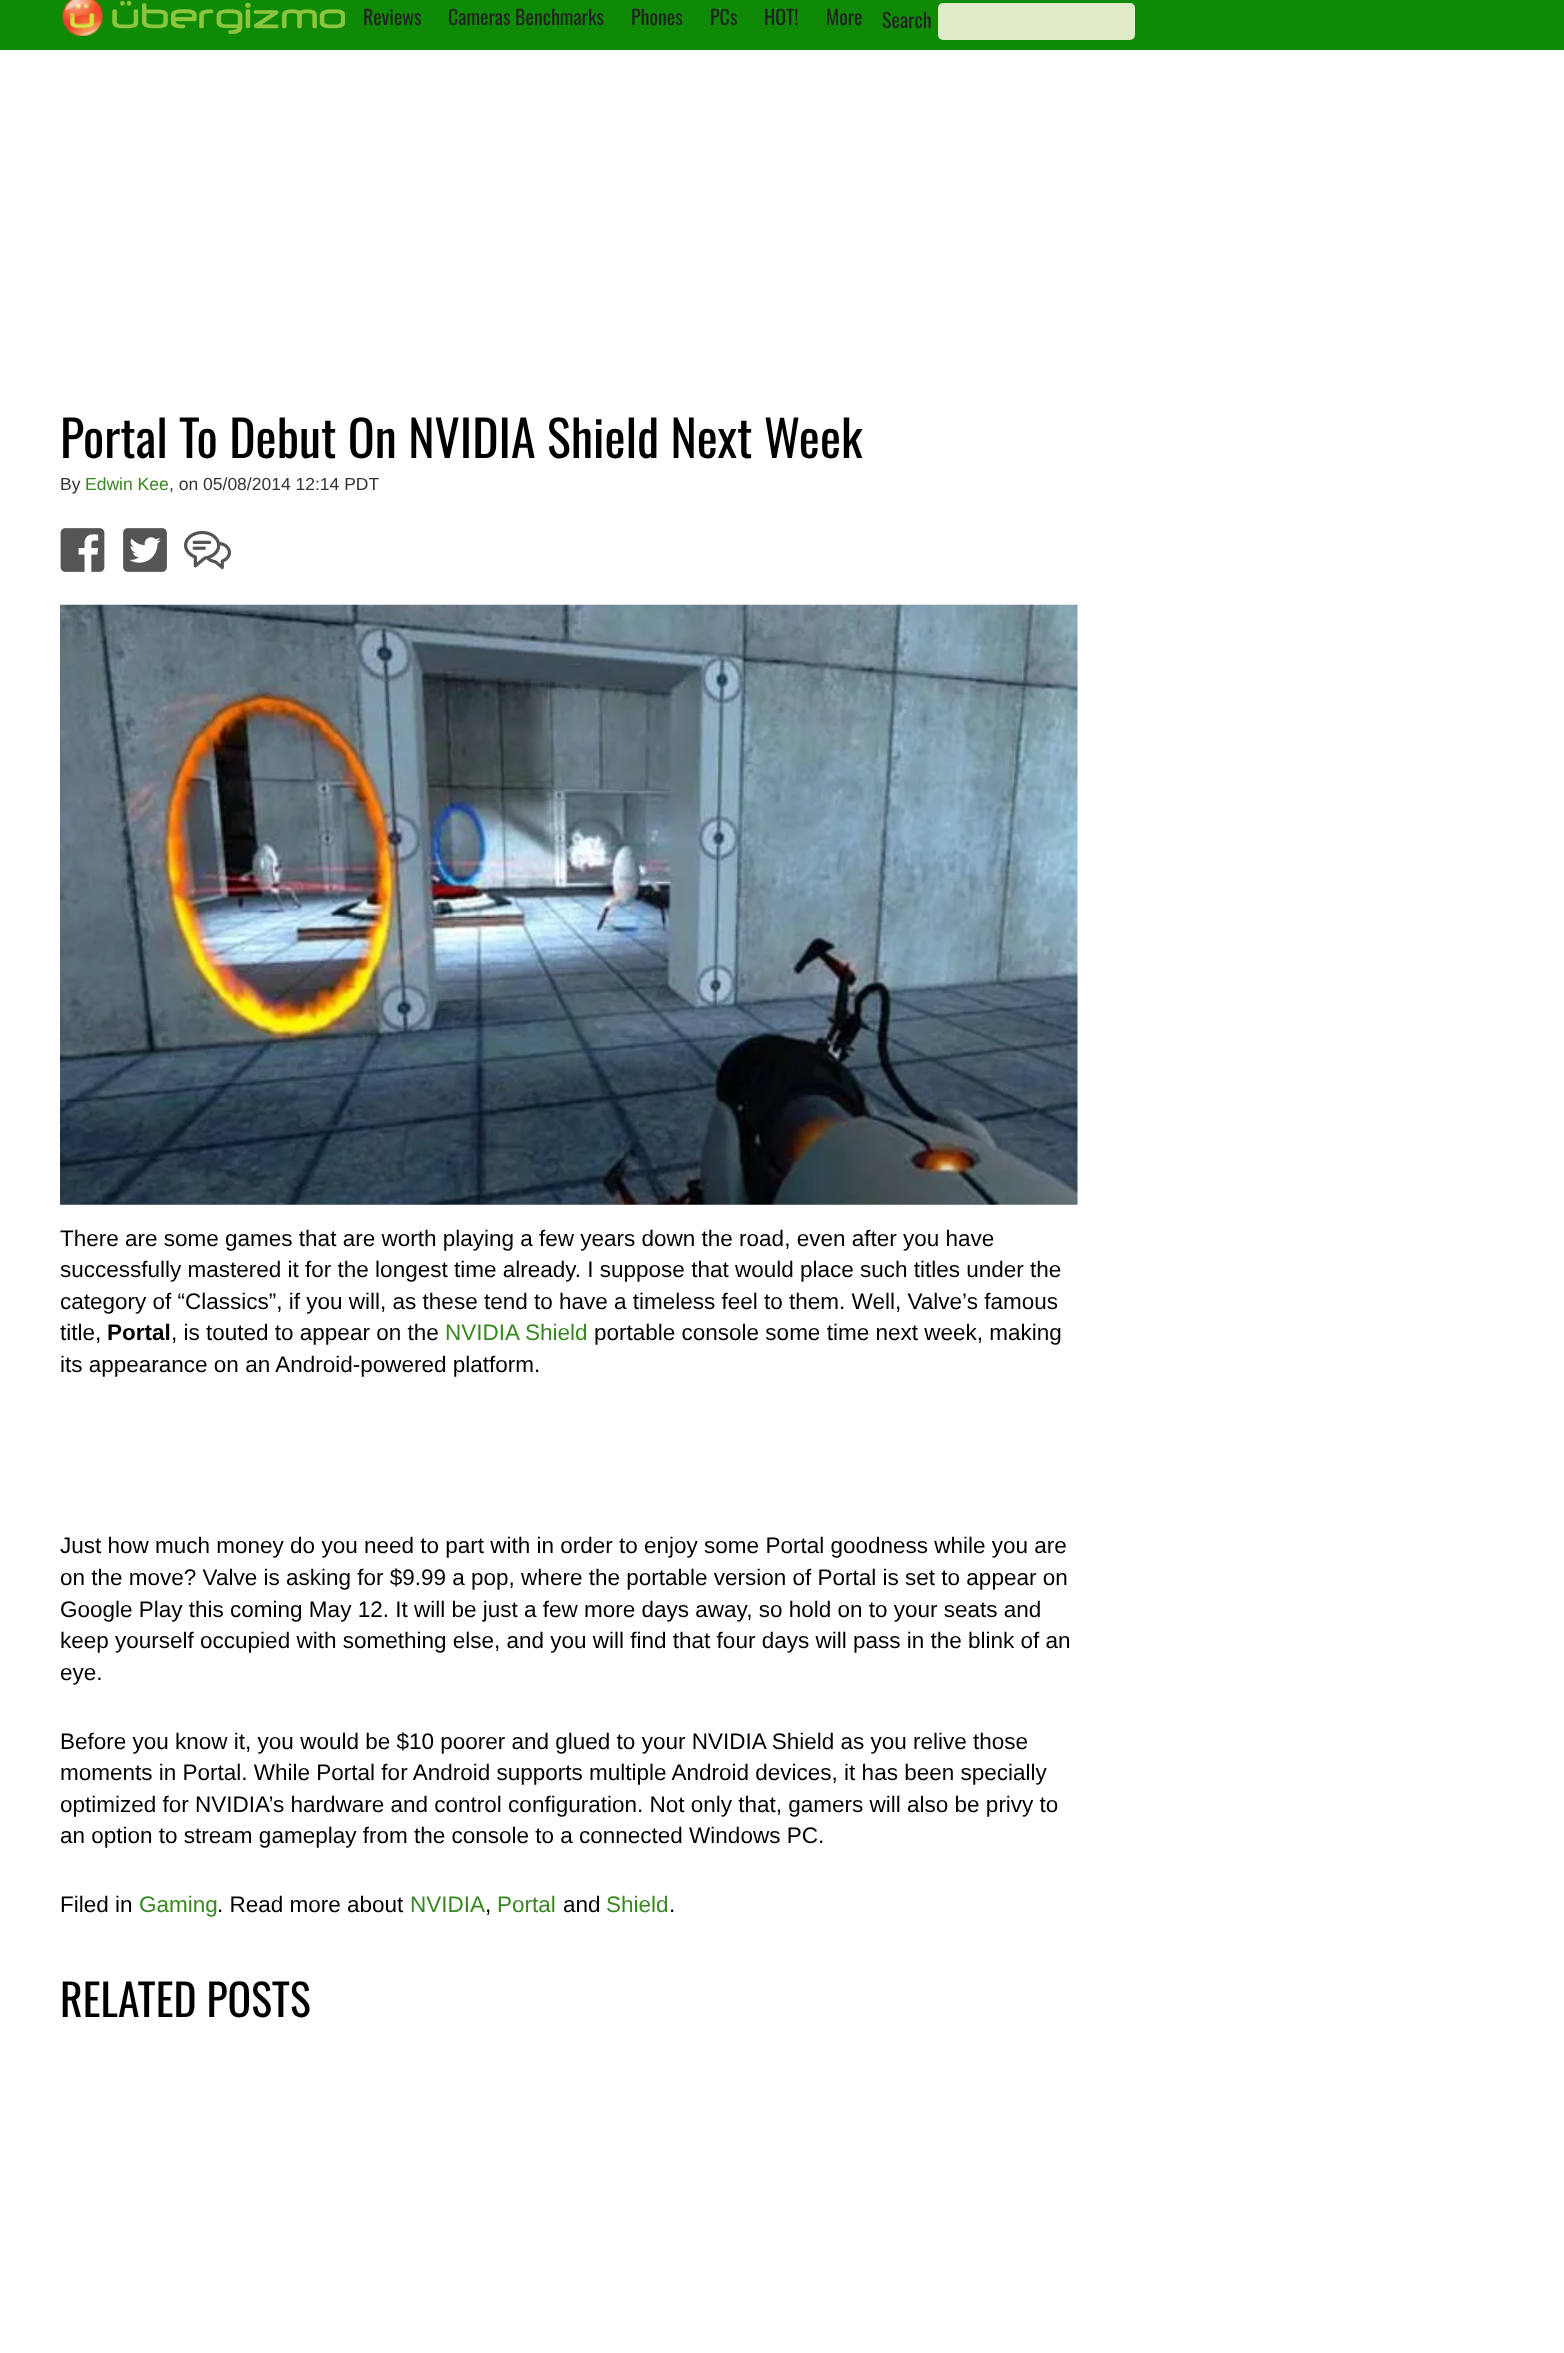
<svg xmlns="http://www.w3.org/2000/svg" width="1564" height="2353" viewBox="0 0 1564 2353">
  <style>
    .t1 { font: 20px Oswald; fill: #222; }
    .t2 { font: 50px Oswald; fill: #000; }
    .t3 { font: 17.5px Liberation Sans; fill: #333; }
    .t4 { font: 17.5px Liberation Sans; fill: #398720; }
    .t5 { font: 22.5px Liberation Sans; fill: #000; }
    .t6 { font: bold 22.5px Liberation Sans; fill: #000; }
    .t7 { font: 22.5px Liberation Sans; fill: #398720; }
    .t8 { font: 43.75px Oswald; fill: #000; }
  </style>
  <rect width="100%" height="100%" fill="#fff"/>
  <rect x="0" y="0" width="1564" height="50" fill="#0f8a07"/>
  <image x="62" y="0" width="41" height="36" href="images/1.png"/>
  <image x="112" y="1" width="233" height="33" href="images/2.png"/>
  <text x="363" y="25" class="t1">Reviews</text>
  <text x="448" y="25" class="t1">Cameras Benchmarks</text>
  <text x="631" y="25" class="t1">Phones</text>
  <text x="710" y="25" class="t1">PCs</text>
  <text x="764" y="25" class="t1">HOT!</text>
  <text x="826" y="25" class="t1">More</text>
  <text x="882" y="28" class="t1">Search</text>
  <rect x="938" y="3" width="197" height="37" rx="5" fill="#e0ebc9"/>
  <text x="60" y="458" class="t2">Portal To Debut On NVIDIA Shield Next Week</text>
  <text x="60" y="490" class="t3">By</text>
  <text x="85" y="490" class="t4">Edwin Kee</text>
  <text x="169" y="490" class="t3">, on 05/08/2014 12:14 PDT</text>
  <image x="60" y="528" width="45" height="44" href="images/3.png"/>
  <image x="123" y="528" width="44" height="44" href="images/4.png"/>
  <image x="184" y="530" width="47" height="40" href="images/5.png"/>
  <image x="60" y="604" width="1018" height="601" href="images/6.png"/>
  <text x="60" y="1246" class="t5">There are some games that are worth playing a few years down the road, even after you have</text>
  <text x="60" y="1277" class="t5">successfully mastered it for the longest time already. I suppose that would place such titles under the</text>
  <text x="60" y="1309" class="t5">category of “Classics”, if you will, as these tend to have a timeless feel to them. Well, Valve’s famous</text>
  <text x="60" y="1340" class="t5">title,</text>
  <text x="107" y="1340" class="t6">Portal</text>
  <text x="171" y="1340" class="t5">, is touted to appear on the</text>
  <text x="445" y="1340" class="t7">NVIDIA Shield</text>
  <text x="594" y="1340" class="t5">portable console some time next week, making</text>
  <text x="60" y="1372" class="t5">its appearance on an Android-powered platform.</text>
  <text x="60" y="1553" class="t5">Just how much money do you need to part with in order to enjoy some Portal goodness while you are</text>
  <text x="60" y="1585" class="t5">on the move? Valve is asking for $9.99 a pop, where the portable version of Portal is set to appear on</text>
  <text x="60" y="1617" class="t5">Google Play this coming May 12. It will be just a few more days away, so hold on to your seats and</text>
  <text x="60" y="1648" class="t5">keep yourself occupied with something else, and you will find that four days will pass in the blink of an</text>
  <text x="60" y="1680" class="t5">eye.</text>
  <text x="60" y="1749" class="t5">Before you know it, you would be $10 poorer and glued to your NVIDIA Shield as you relive those</text>
  <text x="60" y="1780" class="t5">moments in Portal. While Portal for Android supports multiple Android devices, it has been specially</text>
  <text x="60" y="1812" class="t5">optimized for NVIDIA’s hardware and control configuration. Not only that, gamers will also be privy to</text>
  <text x="60" y="1843" class="t5">an option to stream gameplay from the console to a connected Windows PC.</text>
  <text x="60" y="1912" class="t5">Filed in</text>
  <text x="139" y="1912" class="t7">Gaming</text>
  <text x="217" y="1912" class="t5">. Read more about</text>
  <text x="410" y="1912" class="t7">NVIDIA</text>
  <text x="485" y="1912" class="t5">,</text>
  <text x="497" y="1912" class="t7">Portal</text>
  <text x="563" y="1912" class="t5">and</text>
  <text x="606" y="1912" class="t7">Shield</text>
  <text x="669" y="1912" class="t5">.</text>
  <text x="60" y="2017" class="t8">RELATED POSTS</text>
</svg>
